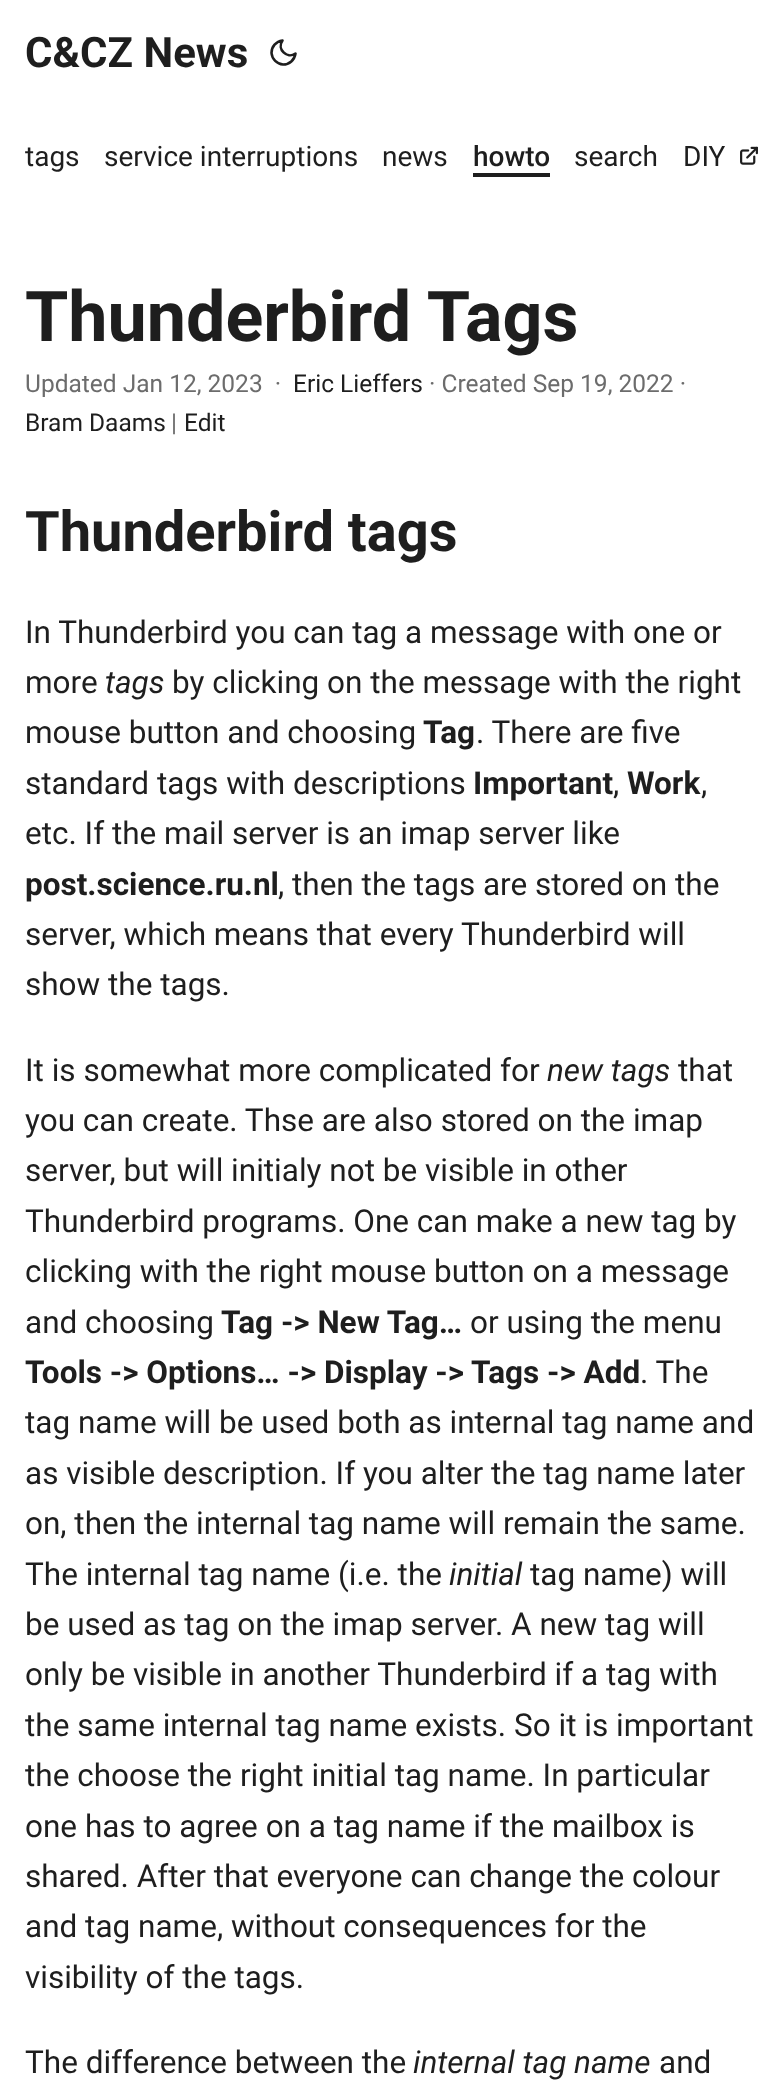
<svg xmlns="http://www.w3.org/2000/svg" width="782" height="2082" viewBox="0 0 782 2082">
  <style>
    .t1 { font: bold 42px Roboto; fill: #1e1e1e; }
    .t2 { font: 28px Roboto; fill: #1e1e1e; }
    .t3 { font: 500 28px Roboto; fill: #1e1e1e; }
    .t4 { font: bold 70px Roboto; fill: #1e1e1e; }
    .t5 { font: 24.5px Roboto; fill: #6c6c6c; }
    .t6 { font: 24.5px Roboto; fill: #1e1e1e; }
    .t7 { font: bold 56px Roboto; fill: #1e1e1e; }
    .t8 { font: 31.5px Roboto; fill: #1e1e1e; }
    .t9 { font: italic 31.5px Roboto; fill: #1e1e1e; }
    .t10 { font: bold 31.5px Roboto; fill: #1e1e1e; }
  </style>
  <rect width="100%" height="100%" fill="#fff"/>
  <text x="25" y="67" class="t1">C&amp;CZ News</text>
  <path d="M295.5 53.5C294.5 60 289.5 64.5 283 64.5C277 64 272 59 271.5 53C271.5 46.5 276 41.5 282.5 40.5C276.5 49 287 59.5 295.5 53.5Z" fill="none" stroke="#1e1e1e" stroke-width="2.6" stroke-linecap="round" stroke-linejoin="round"/>
  <text x="25" y="166" class="t2">tags</text>
  <text x="104" y="166" class="t2">service interruptions</text>
  <text x="382" y="166" class="t2">news</text>
  <text x="473" y="166" class="t3">howto</text>
  <rect x="473" y="173" width="77" height="4" fill="#1e1e1e"/>
  <text x="574" y="166" class="t2">search</text>
  <text x="683" y="166" class="t2">DIY</text>
  <image x="740" y="146" width="18" height="19" href="images/1.png"/>
  <text x="25" y="341" class="t4">Thunderbird Tags</text>
  <text x="25" y="392" class="t5" xml:space="preserve">Updated Jan 12, 2023  ·</text>
  <text x="293" y="392" class="t6">Eric Lieffers</text>
  <text x="429" y="392" class="t5">· Created Sep 19, 2022 ·</text>
  <text x="25" y="431" class="t6">Bram Daams</text>
  <text x="171" y="431" class="t5">|</text>
  <text x="184" y="431" class="t6">Edit</text>
  <text x="25" y="551" class="t7">Thunderbird tags</text>
  <text x="25" y="643" class="t8">In Thunderbird you can tag a message with one or</text>
  <text x="25" y="693" class="t8">more</text>
  <text x="105" y="693" class="t9">tags</text>
  <text x="172" y="693" class="t8">by clicking on the message with the right</text>
  <text x="25" y="743" class="t8">mouse button and choosing</text>
  <text x="423" y="743" class="t10">Tag</text>
  <text x="476" y="743" class="t8">. There are five</text>
  <text x="25" y="794" class="t8">standard tags with descriptions</text>
  <text x="473" y="794" class="t10">Important</text>
  <text x="613" y="794" class="t8">,</text>
  <text x="627" y="794" class="t10">Work</text>
  <text x="701" y="794" class="t8">,</text>
  <text x="25" y="844" class="t8">etc. If the mail server is an imap server like</text>
  <text x="25" y="895" class="t10">post.science.ru.nl</text>
  <text x="278" y="895" class="t8">, then the tags are stored on the</text>
  <text x="25" y="945" class="t8">server, which means that every Thunderbird will</text>
  <text x="25" y="995" class="t8">show the tags.</text>
  <text x="25" y="1081" class="t8">It is somewhat more complicated for</text>
  <text x="547" y="1081" class="t9">new tags</text>
  <text x="678" y="1081" class="t8">that</text>
  <text x="25" y="1131" class="t8">you can create. Thse are also stored on the imap</text>
  <text x="25" y="1181" class="t8">server, but will initialy not be visible in other</text>
  <text x="25" y="1232" class="t8">Thunderbird programs. One can make a new tag by</text>
  <text x="25" y="1282" class="t8">clicking with the right mouse button on a message</text>
  <text x="25" y="1333" class="t8">and choosing</text>
  <text x="221" y="1333" class="t10">Tag -&gt; New Tag…</text>
  <text x="470" y="1333" class="t8">or using the menu</text>
  <text x="25" y="1383" class="t10">Tools -&gt; Options… -&gt; Display -&gt; Tags -&gt; Add</text>
  <text x="640" y="1383" class="t8">. The</text>
  <text x="25" y="1433" class="t8">tag name will be used both as internal tag name and</text>
  <text x="25" y="1484" class="t8">as visible description. If you alter the tag name later</text>
  <text x="25" y="1534" class="t8">on, then the internal tag name will remain the same.</text>
  <text x="25" y="1585" class="t8">The internal tag name (i.e. the</text>
  <text x="449" y="1585" class="t9">initial</text>
  <text x="530" y="1585" class="t8">tag name) will</text>
  <text x="25" y="1635" class="t8">be used as tag on the imap server. A new tag will</text>
  <text x="25" y="1685" class="t8">only be visible in another Thunderbird if a tag with</text>
  <text x="25" y="1736" class="t8">the same internal tag name exists. So it is important</text>
  <text x="25" y="1786" class="t8">the choose the right initial tag name. In particular</text>
  <text x="25" y="1837" class="t8">one has to agree on a tag name if the mailbox is</text>
  <text x="25" y="1887" class="t8">shared. After that everyone can change the colour</text>
  <text x="25" y="1937" class="t8">and tag name, without consequences for the</text>
  <text x="25" y="1988" class="t8">visibility of the tags.</text>
  <text x="25" y="2073" class="t8">The difference between the</text>
  <text x="413" y="2073" class="t9">internal tag name</text>
  <text x="659" y="2073" class="t8">and</text>
</svg>
